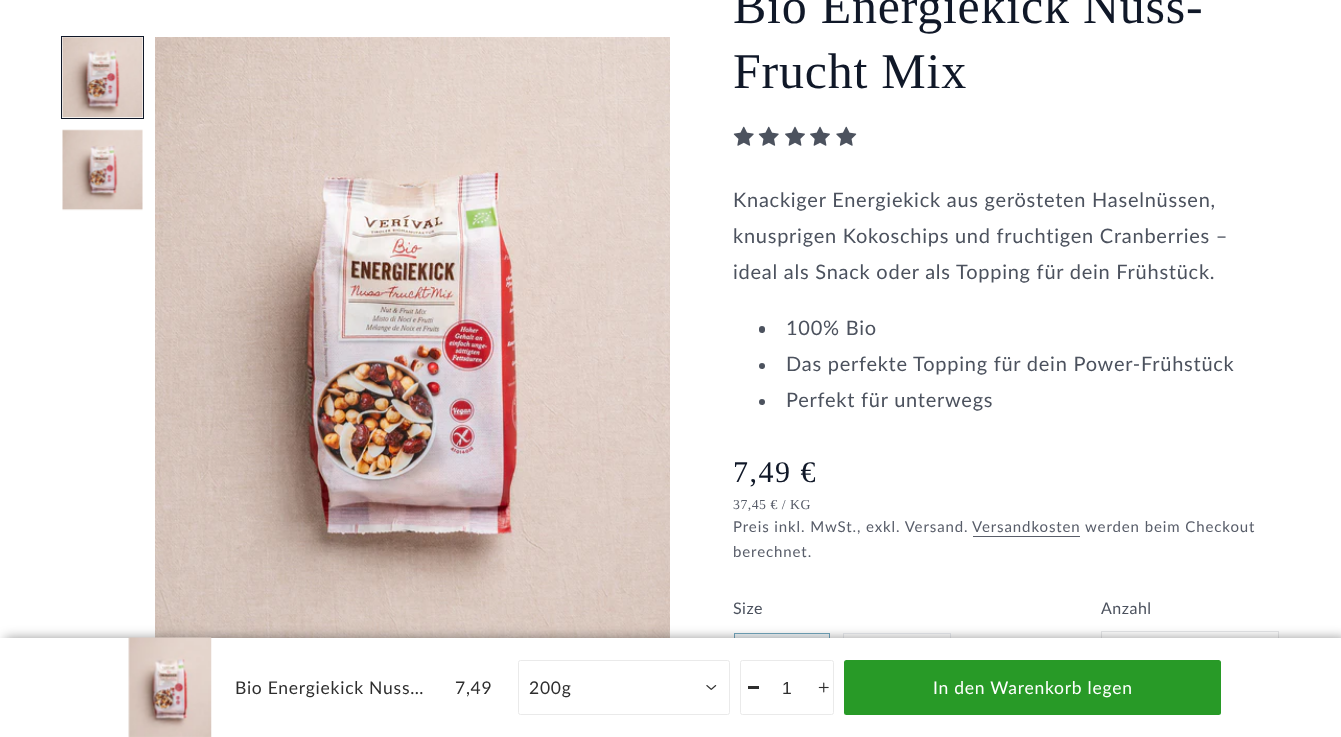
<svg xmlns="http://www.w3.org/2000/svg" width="1341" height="737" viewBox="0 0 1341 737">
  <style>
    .t1 { font: 50px Liberation Serif; letter-spacing: 0.75px; fill: #101828; }
    .t2 { font: 20px Lato; letter-spacing: 0.75px; fill: #4c525e; }
    .t3 { font: 30px Liberation Serif; letter-spacing: 1.5px; fill: #101828; }
    .t4 { font: 13.75px Liberation Serif; letter-spacing: 0.5px; fill: #585d69; }
    .t5 { font: 15px Lato; letter-spacing: 0.9px; fill: #585d69; }
    .t6 { font: 16px Lato; letter-spacing: 0.5px; fill: #4c525e; }
    .t7 { font: 17.5px Lato; letter-spacing: 0.75px; fill: #2e2e2e; }
    .t8 { font: 17.5px Liberation Sans; fill: #2e2e2e; }
    .t9 { font: 17.5px Lato; letter-spacing: 0.75px; fill: #fff; }
  </style>
  <rect width="100%" height="100%" fill="#fff"/>
  <rect x="61.5" y="36.5" width="82" height="82" fill="none" stroke="#101828"/>
  <image x="62" y="37" width="81" height="81" href="images/1.png"/>
  <image x="62" y="129" width="81" height="82" href="images/2.png"/>
  <image x="155" y="37" width="515" height="601" href="images/3.png"/>
  <text x="733" y="23" class="t1">Bio Energiekick Nuss-</text>
  <text x="733" y="88" class="t1">Frucht Mix</text>
  <image x="733" y="126" width="21" height="20" href="images/4.png"/>
  <image x="758" y="126" width="21" height="20" href="images/4.png"/>
  <image x="785" y="126" width="20" height="20" href="images/5.png"/>
  <image x="810" y="126" width="20" height="20" href="images/5.png"/>
  <image x="836" y="126" width="21" height="20" href="images/6.png"/>
  <text x="733" y="207" class="t2">Knackiger Energiekick aus gerösteten Haselnüssen,</text>
  <text x="733" y="243" class="t2">knusprigen Kokoschips und fruchtigen Cranberries –</text>
  <text x="733" y="279" class="t2">ideal als Snack oder als Topping für dein Frühstück.</text>
  <rect x="759" y="326" width="6" height="7" rx="3" fill="#4c525e"/>
  <text x="786" y="335" class="t2">100% Bio</text>
  <circle cx="762" cy="366" r="3" fill="#4c525e"/>
  <text x="786" y="371" class="t2">Das perfekte Topping für dein Power-Frühstück</text>
  <circle cx="762" cy="402" r="3" fill="#4c525e"/>
  <text x="786" y="407" class="t2">Perfekt für unterwegs</text>
  <text x="733" y="482" class="t3">7,49 €</text>
  <text x="733" y="509" class="t4">37,45 € / KG</text>
  <text x="733" y="532" class="t5">Preis inkl. MwSt.,</text>
  <text x="866" y="532" class="t5">exkl. Versand.</text>
  <text x="972" y="532" class="t5">Versandkosten werden beim Checkout</text>
  <rect x="973" y="536" width="107" height="1" fill="#585d69"/>
  <text x="733" y="557" class="t5">berechnet.</text>
  <text x="733" y="614" class="t6">Size</text>
  <rect x="735" y="634" width="94" height="4" fill="#f2f7fa"/>
  <rect x="734.5" y="633.5" width="95" height="49" fill="none" stroke="#73a8bf"/>
  <rect x="843.5" y="633.5" width="107" height="49" fill="none" stroke="#eaecf0"/>
  <text x="1101" y="614" class="t6">Anzahl</text>
  <rect x="1101.5" y="631.5" width="177" height="51" fill="none" stroke="#e7e8ea"/>
  <rect x="5" y="638" width="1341" height="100" fill="#00000066" filter="blur(6px)"/>
  <rect x="0" y="638" width="1341" height="99" fill="#fff"/>
  <image x="128" y="637" width="84" height="100" href="images/7.png"/>
  <text x="235" y="694" class="t7">Bio Energiekick Nuss…</text>
  <text x="455" y="694" class="t7">7,49</text>
  <rect x="518.5" y="660.5" width="211" height="54" rx="2" fill="none" stroke="#eaeaea"/>
  <text x="529" y="694" class="t7">200g</text>
  <image x="706" y="685" width="11" height="5" href="images/8.png"/>
  <rect x="740.5" y="660.5" width="93" height="54" rx="2" fill="none" stroke="#eaeaea"/>
  <rect x="748" y="686" width="11" height="3" fill="#2e2e2e"/>
  <text x="782" y="694" class="t8">1</text>
  <image x="818" y="682" width="11" height="11" href="images/9.png"/>
  <rect x="844" y="660" width="377" height="55" rx="2.5" fill="#289a27"/>
  <text x="933" y="694" class="t9">In den Warenkorb legen</text>
</svg>
